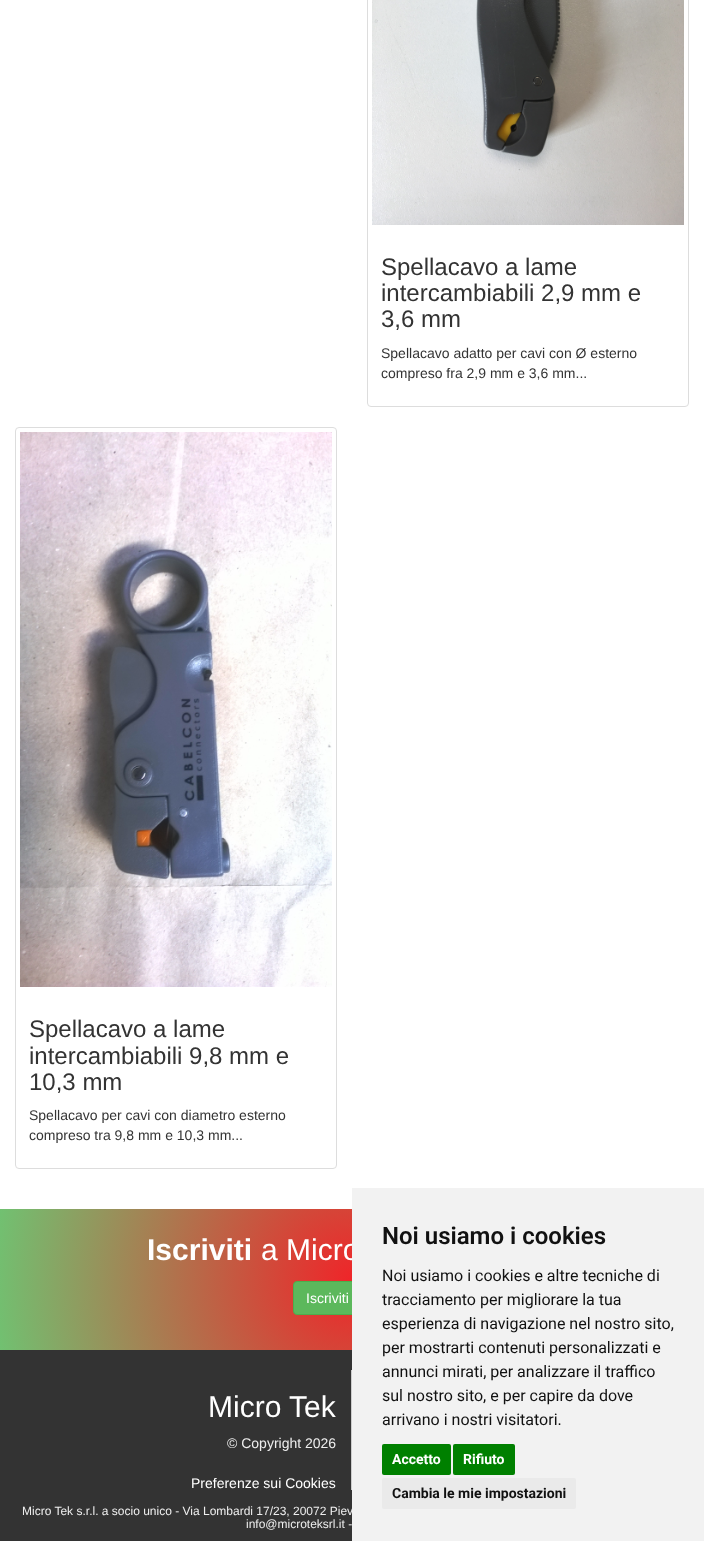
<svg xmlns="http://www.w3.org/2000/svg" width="704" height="1541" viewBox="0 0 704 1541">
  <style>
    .t1 { font: 24px Liberation Sans; fill: #333; }
    .t2 { font: 14px Liberation Sans; fill: #333; }
    .t3 { font: bold 30px Liberation Sans; fill: #fff; }
    .t4 { font: 30px Liberation Sans; fill: #fff; }
    .t5 { font: 14px Liberation Sans; fill: #fff; }
    .t6 { font: 14px Liberation Sans; fill: #eee; }
    .t7 { font: 12px Liberation Sans; fill: #eee; }
    .t8 { font: 600 24px Roboto; fill: #111; }
    .t9 { font: 16px Roboto; fill: #111; }
    .t10 { font: bold 14px Roboto; fill: #fff; }
    .t11 { font: bold 14px Roboto; fill: #111; }
  </style>
  <defs>
    <radialGradient id="g1" gradientUnits="userSpaceOnUse" cx="352" cy="1280" r="359"><stop offset="0" stop-color="#ef2529"/><stop offset="1" stop-color="#71c171"/></radialGradient>
  </defs>
  <rect width="100%" height="100%" fill="#fff"/>
  <rect x="367.5" y="-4.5" width="321" height="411" rx="3.5" fill="none" stroke="#ddd"/>
  <image x="372" y="0" width="312" height="225" href="images/1.png"/>
  <text x="381" y="275" class="t1">Spellacavo a lame</text>
  <text x="381" y="301" class="t1">intercambiabili 2,9 mm e</text>
  <text x="381" y="327" class="t1">3,6 mm</text>
  <text x="381" y="358" class="t2">Spellacavo adatto per cavi con Ø esterno</text>
  <text x="381" y="378" class="t2">compreso fra 2,9 mm e 3,6 mm...</text>
  <rect x="15.5" y="427.5" width="321" height="741" rx="3.5" fill="none" stroke="#ddd"/>
  <image x="20" y="432" width="312" height="555" href="images/2.png"/>
  <text x="29" y="1037" class="t1">Spellacavo a lame</text>
  <text x="29" y="1064" class="t1">intercambiabili 9,8 mm e</text>
  <text x="29" y="1090" class="t1">10,3 mm</text>
  <text x="29" y="1120" class="t2">Spellacavo per cavi con diametro esterno</text>
  <text x="29" y="1140" class="t2">compreso tra 9,8 mm e 10,3 mm...</text>
  <rect x="0" y="1209" width="352" height="141" fill="url(#g1)"/>
  <text x="147" y="1260" class="t3">Iscriviti</text>
  <text x="261" y="1260" class="t4">a Micro</text>
  <rect x="293.5" y="1281.5" width="117" height="33" rx="3.5" fill="#5cb85c" stroke="#4cae4c"/>
  <text x="306" y="1303" class="t5">Iscriviti</text>
  <rect x="0" y="1350" width="352" height="191" fill="#333"/>
  <rect x="351" y="1370" width="1" height="120" fill="#ccc"/>
  <text x="208" y="1417" class="t4">Micro Tek</text>
  <text x="227" y="1448" class="t6">© Copyright 2026</text>
  <text x="191" y="1488" class="t5">Preferenze sui Cookies</text>
  <text x="22" y="1515" class="t7">Micro Tek s.r.l. a socio unico - Via Lombardi 17/23, 20072 Piev</text>
  <text x="246" y="1528" class="t7">info@microteksrl.it -</text>
  <rect x="352" y="1188" width="352" height="353" fill="#f2f2f2"/>
  <text x="382" y="1244" class="t8">Noi usiamo i cookies</text>
  <text x="382" y="1281" class="t9">Noi usiamo i cookies e altre tecniche di</text>
  <text x="382" y="1305" class="t9">tracciamento per migliorare la tua</text>
  <text x="382" y="1329" class="t9">esperienza di navigazione nel nostro sito,</text>
  <text x="382" y="1353" class="t9">per mostrarti contenuti personalizzati e</text>
  <text x="382" y="1377" class="t9">annunci mirati, per analizzare il traffico</text>
  <text x="382" y="1401" class="t9">sul nostro sito, e per capire da dove</text>
  <text x="382" y="1425" class="t9">arrivano i nostri visitatori.</text>
  <rect x="382" y="1444" width="69" height="31" rx="2" fill="#008000"/>
  <text x="392" y="1464" class="t10">Accetto</text>
  <rect x="453" y="1444" width="62" height="31" rx="2" fill="#008000"/>
  <text x="463" y="1464" class="t10">Rifiuto</text>
  <rect x="382" y="1478" width="194" height="31" rx="2" fill="#eaeaea"/>
  <text x="392" y="1498" class="t11">Cambia le mie impostazioni</text>
</svg>
